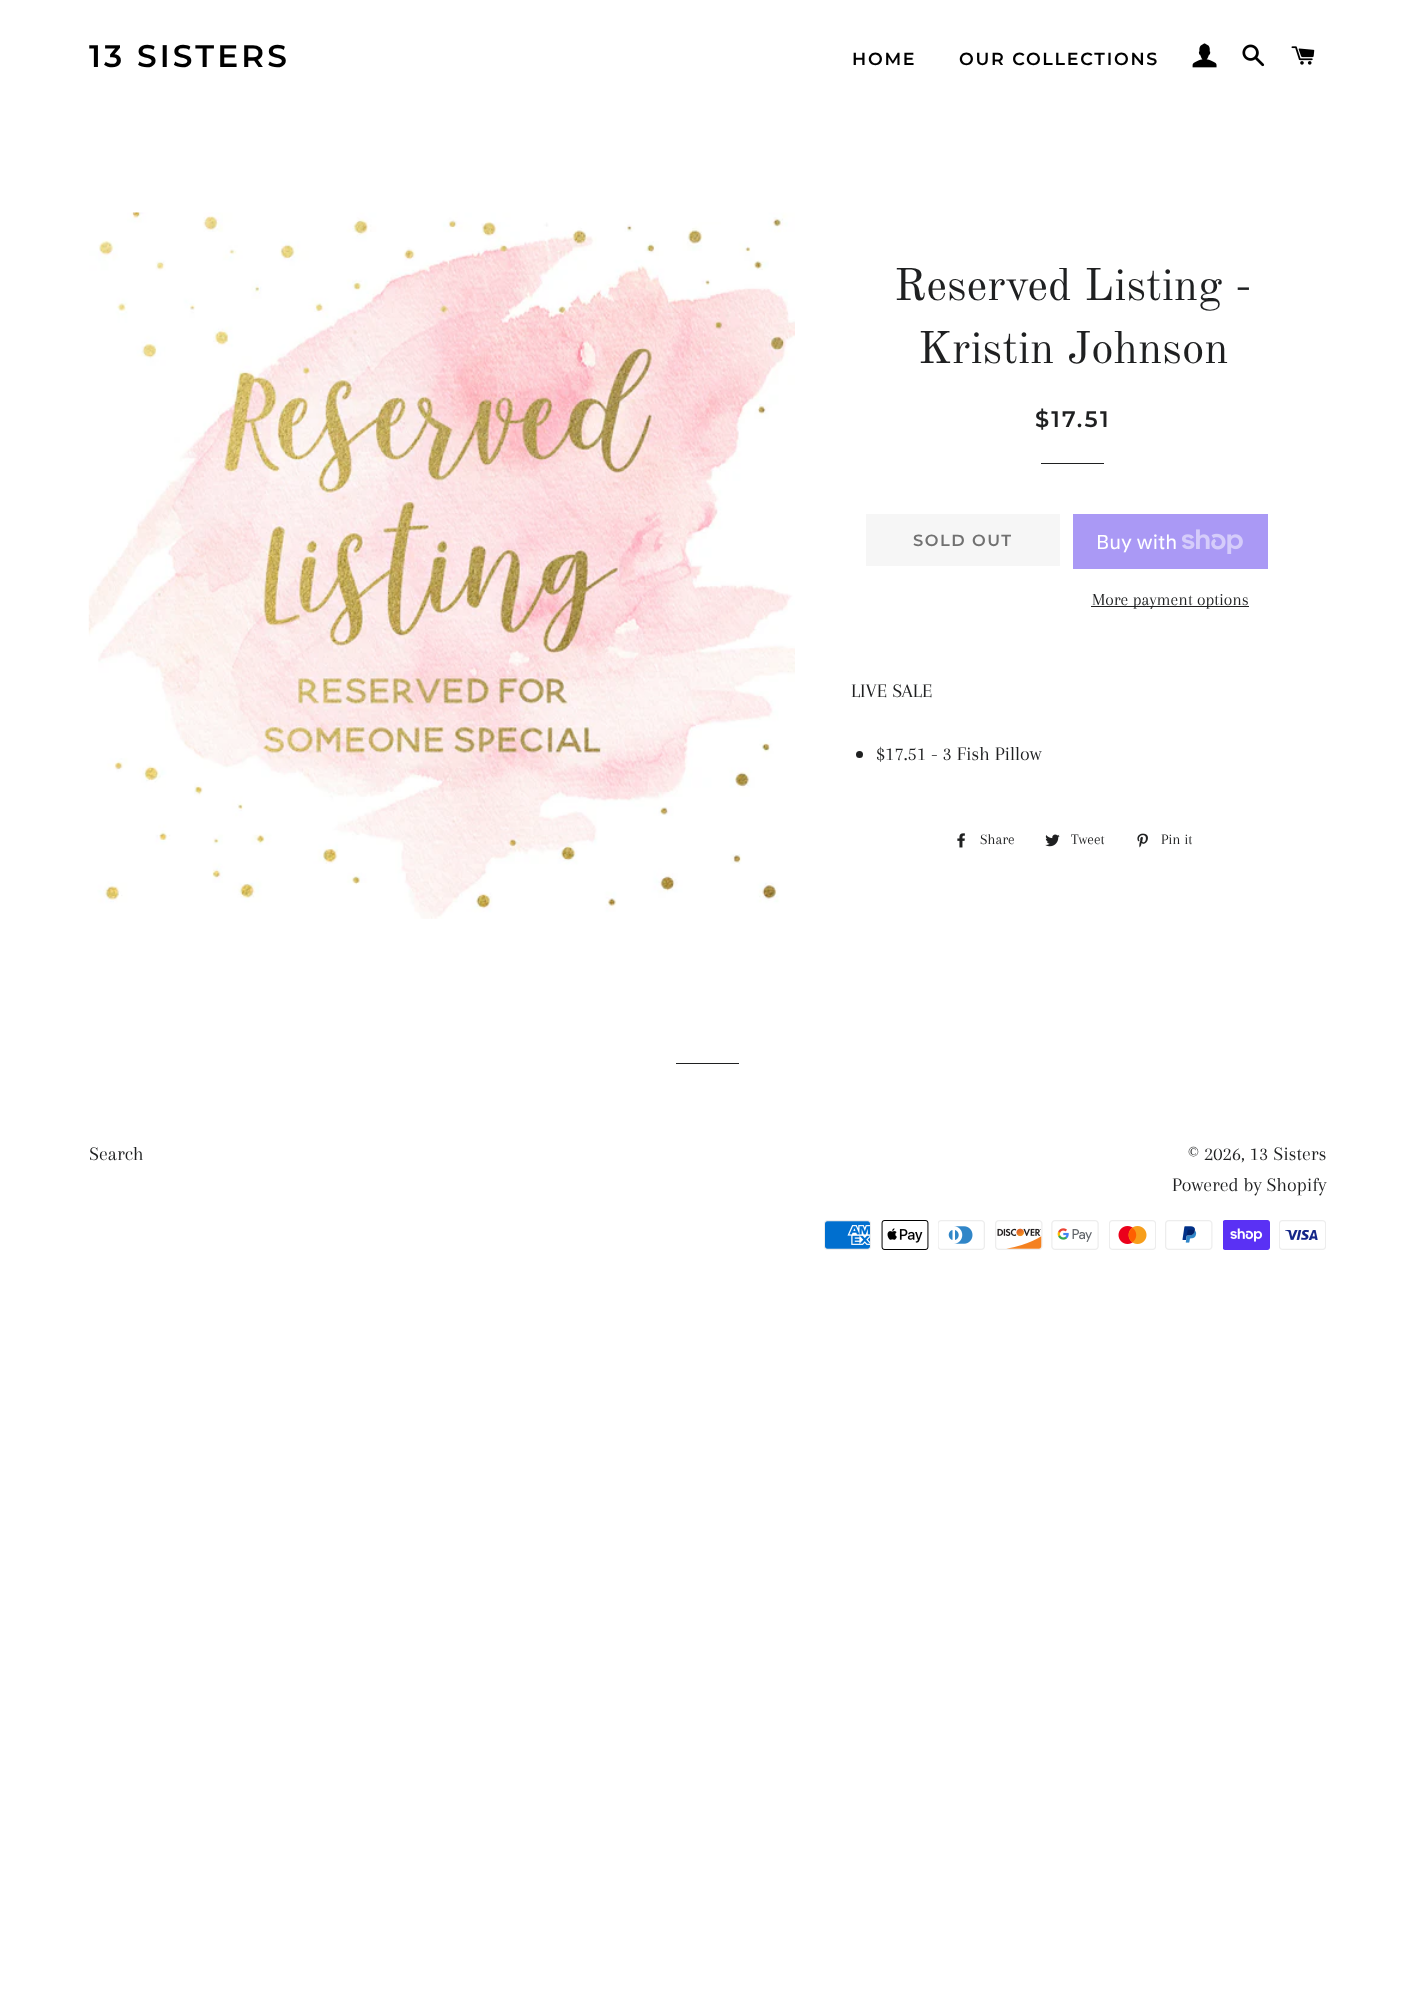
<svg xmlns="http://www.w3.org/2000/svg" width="1414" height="1995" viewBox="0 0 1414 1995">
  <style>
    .t1 { font: 600 31.25px Montserrat; letter-spacing: 3.1px; fill: #000; }
    .t2 { font: 600 17.5px Montserrat; letter-spacing: 1.75px; fill: #000; }
    .t3 { font: 45px Old Standard TT; fill: #1f2021; }
    .t4 { font: 600 22.5px Montserrat; letter-spacing: 2.25px; fill: #1f2021; }
    .t5 { font: 600 16.25px Montserrat; letter-spacing: 1.5px; fill: #717171; }
    .t6 { font: 20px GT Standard; fill: #fff; }
    .t7 { font: 17.5px Arapey; fill: #1f2021; }
    .t8 { font: 20px Arapey; fill: #1f2021; }
    .t9 { font: 15px Arapey; fill: #1f2021; }
  </style>
  <rect width="100%" height="100%" fill="#fff"/>
  <text x="89" y="67" class="t1">13 SISTERS</text>
  <text x="852" y="65" class="t2">HOME</text>
  <text x="959" y="65" class="t2">OUR COLLECTIONS</text>
  <image x="1192" y="43" width="25" height="25" href="images/1.png"/>
  <image x="1242" y="44" width="23" height="23" href="images/2.png"/>
  <image x="1291" y="46" width="24" height="19" href="images/3.png"/>
  <image x="88" y="212" width="707" height="707" href="images/4.png"/>
  <text x="894" y="300" class="t3">Reserved Listing -</text>
  <text x="918" y="363" class="t3">Kristin Johnson</text>
  <text x="1035" y="427" class="t4">$17.51</text>
  <rect x="1041" y="463" width="63" height="1" fill="#1f2021"/>
  <rect x="866" y="514" width="194" height="52" fill="#f6f6f6"/>
  <text x="913" y="546" class="t5">SOLD OUT</text>
  <rect x="1073" y="514" width="195" height="55" fill="#aa99f5"/>
  <text x="1096" y="549" class="t6">Buy with</text>
  <image x="1182" y="529" width="61" height="25" href="images/5.png"/>
  <rect x="1091" y="606" width="158" height="1" fill="#1f2021"/>
  <text x="1092" y="605" class="t7">More payment options</text>
  <text x="851" y="697" class="t8">LIVE SALE</text>
  <circle cx="859.5" cy="754.5" r="3.5" fill="#1f2021"/>
  <text x="876" y="760" class="t8">$17.51 - 3 Fish Pillow</text>
  <image x="957" y="833" width="8" height="15" href="images/6.png"/>
  <text x="980" y="844" class="t9">Share</text>
  <image x="1045" y="834" width="15" height="13" href="images/7.png"/>
  <text x="1071" y="844" class="t9">Tweet</text>
  <image x="1137" y="833" width="11" height="15" href="images/8.png"/>
  <text x="1161" y="844" class="t9">Pin it</text>
  <rect x="676" y="1063" width="63" height="1" fill="#1f2021"/>
  <text x="89" y="1160" class="t8">Search</text>
  <text x="1188" y="1160" class="t8">© 2026, 13 Sisters</text>
  <text x="1172" y="1191" class="t8">Powered by Shopify</text>
  <image x="824" y="1220" width="47" height="30" href="images/9.png"/>
  <image x="881" y="1220" width="48" height="30" href="images/10.png"/>
  <image x="938" y="1220" width="47" height="30" href="images/11.png"/>
  <image x="995" y="1220" width="48" height="30" href="images/12.png"/>
  <image x="1051" y="1220" width="48" height="30" href="images/13.png"/>
  <image x="1109" y="1220" width="47" height="30" href="images/14.png"/>
  <image x="1165" y="1220" width="48" height="30" href="images/15.png"/>
  <image x="1223" y="1220" width="47" height="30" href="images/16.png"/>
  <image x="1279" y="1220" width="47" height="30" href="images/17.png"/>
</svg>
